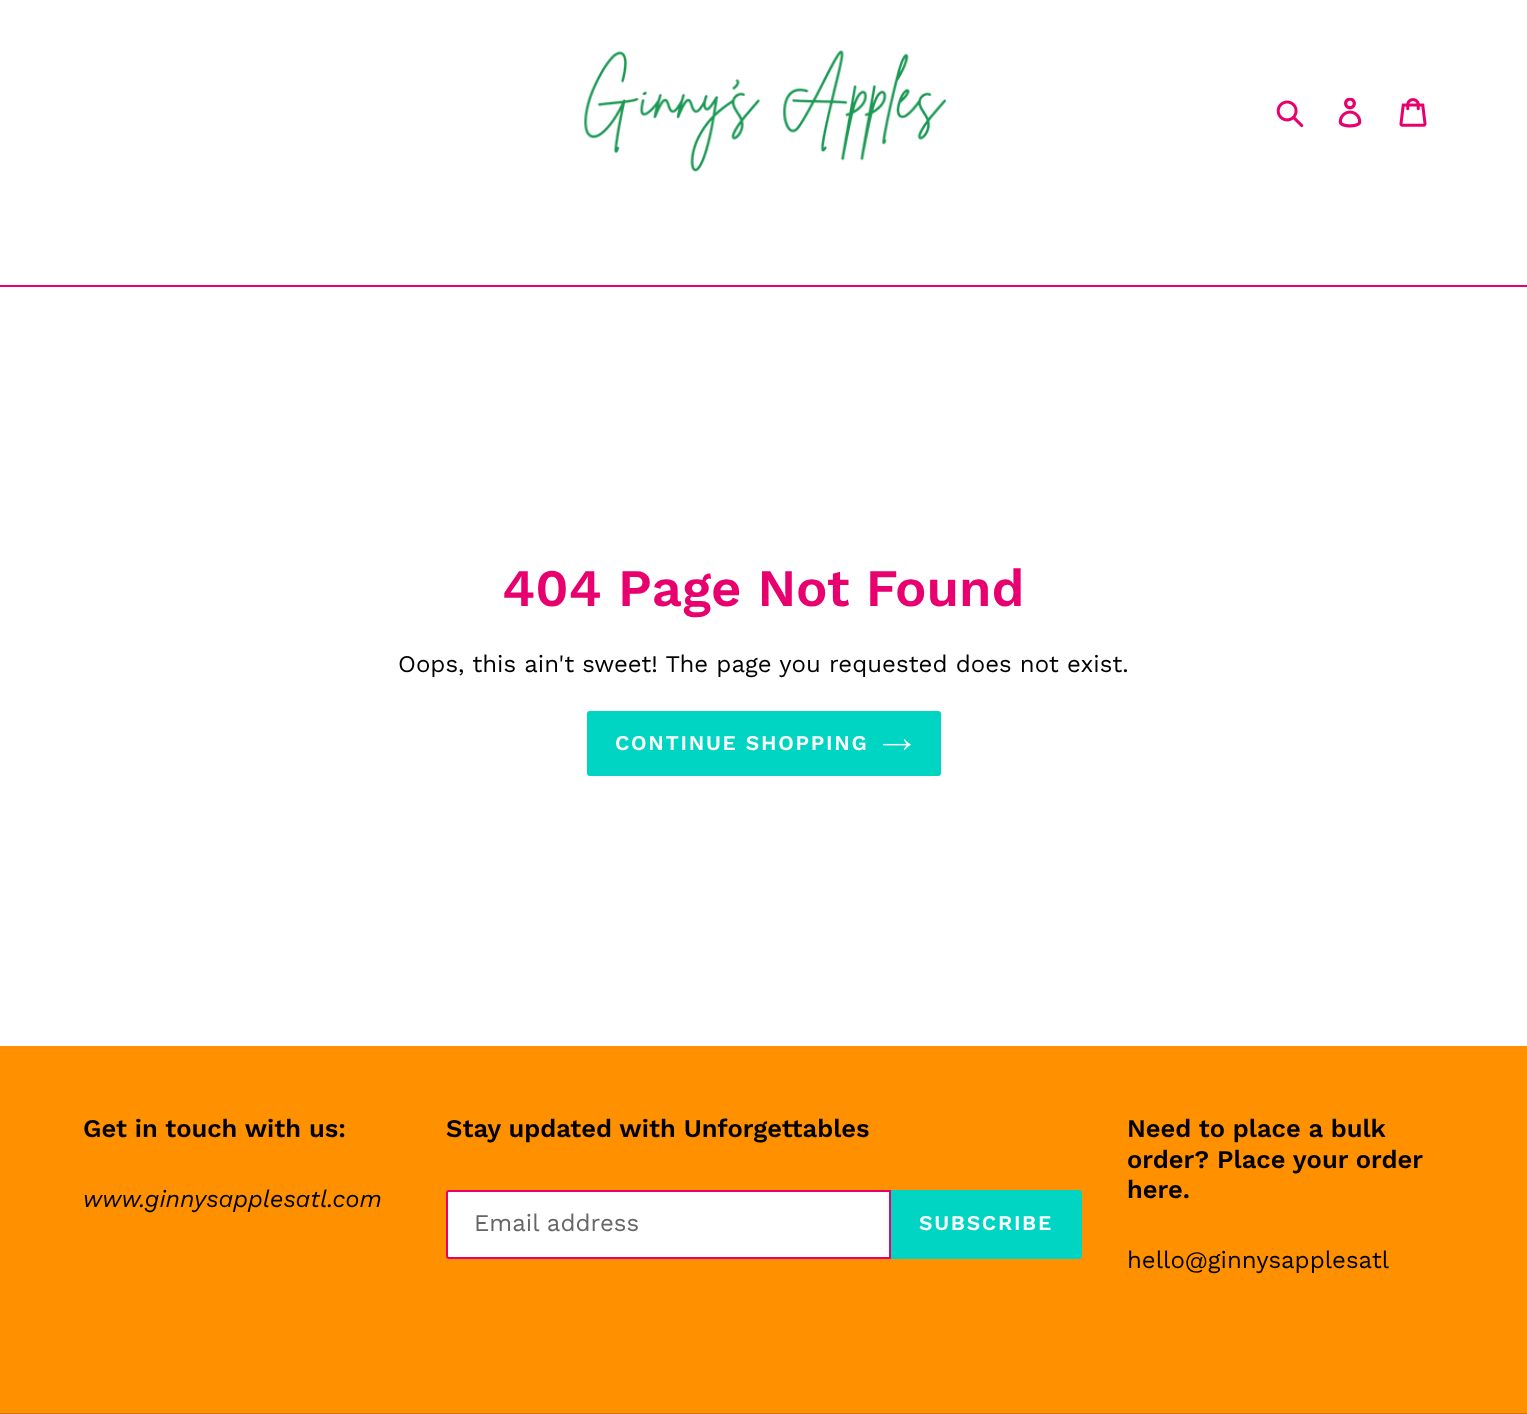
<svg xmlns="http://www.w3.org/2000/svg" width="1527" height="1414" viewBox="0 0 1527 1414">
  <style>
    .t1 { font: 600 52.5px Work Sans; fill: #e7006e; }
    .t2 { font: 24px Work Sans; fill: #000; }
    .t3 { font: 600 21px Work Sans; letter-spacing: 1.7px; fill: #fff; }
    .t4 { font: 600 25.5px Work Sans; fill: #000; }
    .t5 { font: italic 24px Work Sans; fill: #000; }
    .t6 { font: 24px Work Sans; fill: #666; }
  </style>
  <rect width="100%" height="100%" fill="#fff"/>
  <image x="583" y="50" width="364" height="122" href="images/1.png"/>
  <image x="1276" y="100" width="28" height="28" href="images/2.png"/>
  <image x="1338" y="98" width="24" height="30" href="images/3.png"/>
  <image x="1399" y="98" width="28" height="29" href="images/4.png"/>
  <rect x="0" y="285" width="1527" height="2" fill="#e7006e"/>
  <text x="502" y="606" class="t1">404 Page Not Found</text>
  <text x="398" y="672" class="t2">Oops, this ain't sweet! The page you requested does not exist.</text>
  <rect x="587" y="711" width="354" height="65" rx="3" fill="#00d4c2"/>
  <text x="615" y="750" class="t3">CONTINUE SHOPPING</text>
  <image x="883" y="739" width="28" height="11" href="images/5.png"/>
  <rect x="0" y="1046" width="1527" height="367" fill="#ff9000"/>
  <text x="83" y="1137" class="t4">Get in touch with us:</text>
  <text x="83" y="1207" class="t5">www.ginnysapplesatl.com</text>
  <text x="446" y="1137" class="t4">Stay updated with Unforgettables</text>
  <path d="M449 1191H890V1258H449C448 1258 447 1257 447 1256V1193C447 1192 448 1191 449 1191Z" fill="#fff" stroke="#e7006e" stroke-width="2"/>
  <text x="474" y="1231" class="t6">Email address</text>
  <path d="M891 1190H1079C1080.5 1190 1082 1191.5 1082 1193V1256C1082 1257.5 1080.5 1259 1079 1259H891Z" fill="#00d4c2"/>
  <text x="919" y="1230" class="t3">SUBSCRIBE</text>
  <text x="1127" y="1137" class="t4">Need to place a bulk</text>
  <text x="1127" y="1168" class="t4">order? Place your order</text>
  <text x="1127" y="1198" class="t4">here.</text>
  <text x="1127" y="1268" class="t2">hello@ginnysapplesatl</text>
  <rect x="0" y="1413" width="1527" height="1" fill="#cc7300"/>
</svg>
